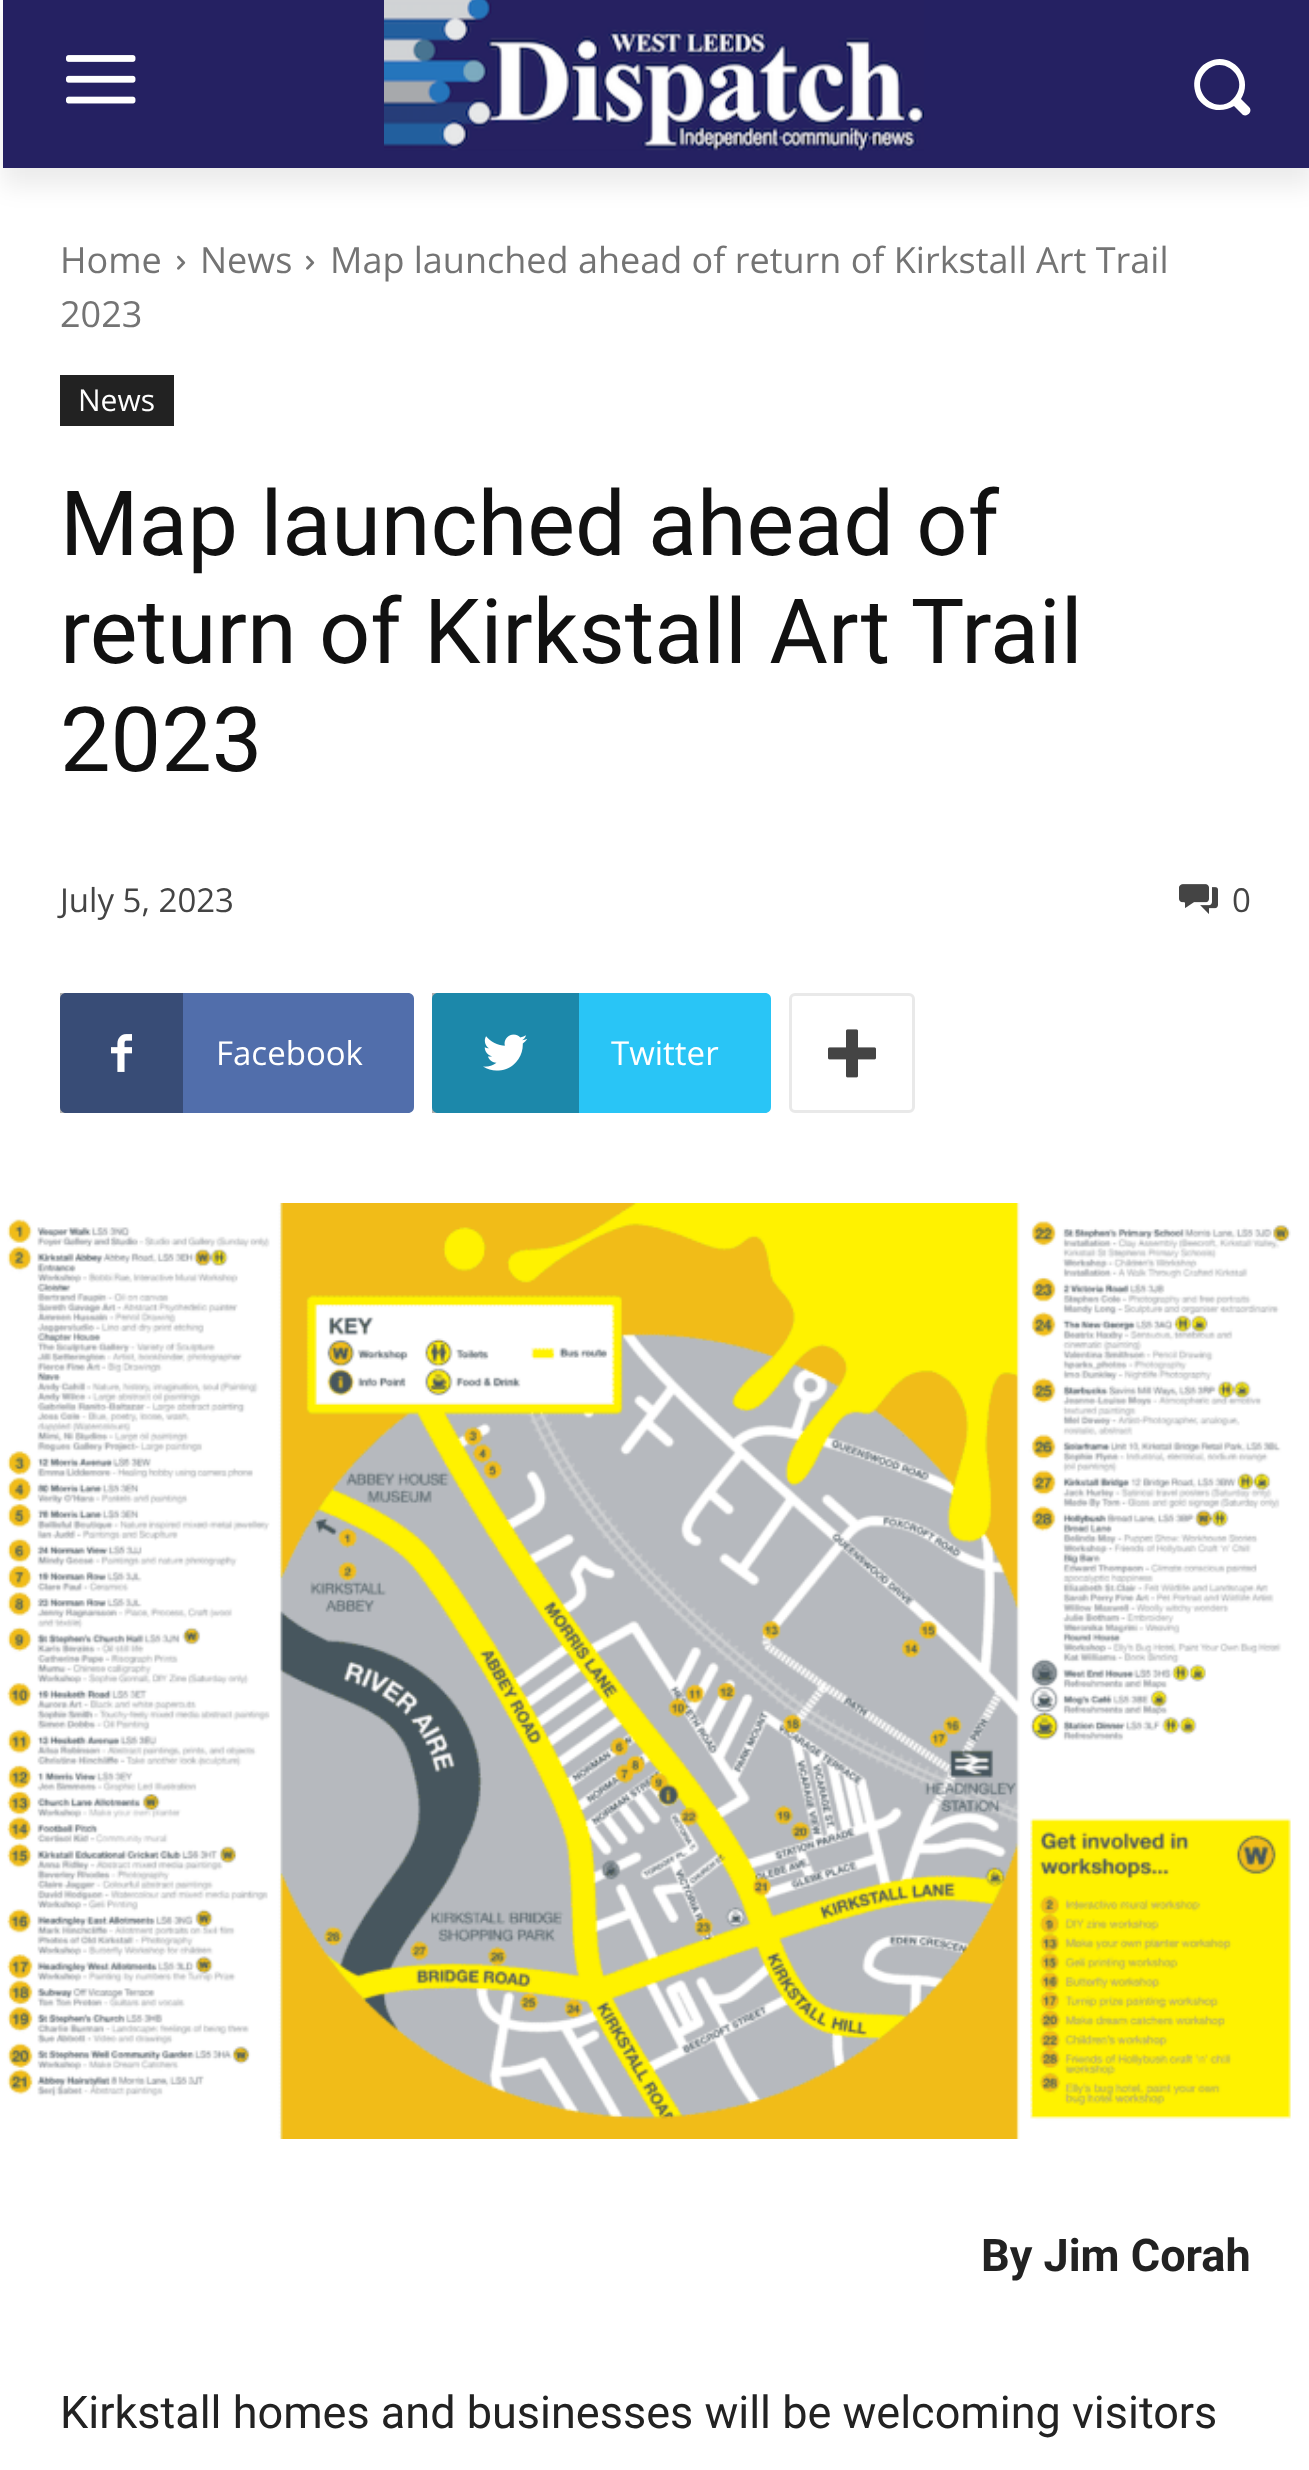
<svg xmlns="http://www.w3.org/2000/svg" width="1309" height="2470" viewBox="0 0 1309 2470">
  <style>
    .t1 { font: 36px Open Sans; fill: #747474; }
    .t2 { font: 30px Open Sans; fill: #fff; }
    .t3 { font: 90px Roboto; fill: #111; }
    .t4 { font: 33px Open Sans; fill: #444; }
    .t5 { font: 33px Open Sans; fill: #fff; }
    .t6 { font: bold 45px Roboto; fill: #222; }
    .t7 { font: 45px Roboto; fill: #222; }
  </style>
  <defs>
    <clipPath id="clip1"><path d="M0 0H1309V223H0ZM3 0H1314V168H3Z" clip-rule="evenodd"/></clipPath>
  </defs>
  <rect width="100%" height="100%" fill="#fff"/>
  <rect x="432" y="993" width="6" height="120" fill="#b0b0b0"/>
  <rect x="60" y="993" width="6" height="120" fill="#b0b0b0"/>
  <rect x="3" y="0" width="1306" height="168" fill="#252162"/>
  <image x="66" y="55" width="70" height="49" href="images/1.png"/>
  <image x="384" y="0" width="540" height="151" href="images/2.png"/>
  <path d="M1249 107L1241 99C1255 77 1231 50 1208 62C1202 65 1198 70 1196 75C1193 82 1194 90 1197 97C1204 110 1221 114 1234 106L1243 115C1248 117 1253 111 1249 107ZM1233 99C1215 117 1188 89 1206 71C1224 53 1252 80 1233 99Z" fill="#fff"/>
  <g clip-path="url(#clip1)">
    <rect x="3" y="18" width="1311" height="168" fill="#00000014" filter="blur(12px)"/>
  </g>
  <text x="60" y="273" class="t1">Home</text>
  <image x="177" y="255" width="9" height="15" href="images/3.png"/>
  <text x="200" y="273" class="t1">News</text>
  <image x="306" y="255" width="9" height="15" href="images/3.png"/>
  <text x="330" y="273" class="t1">Map launched ahead of return of Kirkstall Art Trail</text>
  <text x="60" y="327" class="t1">2023</text>
  <rect x="60" y="375" width="114" height="51" fill="#222"/>
  <text x="78" y="411" class="t2">News</text>
  <text x="60" y="555" class="t3">Map launched ahead of</text>
  <text x="60" y="663" class="t3">return of Kirkstall Art Trail</text>
  <text x="60" y="771" class="t3">2023</text>
  <text x="60" y="912" class="t4">July 5, 2023</text>
  <image x="1179" y="884" width="39" height="30" href="images/4.png"/>
  <text x="1232" y="912" class="t4">0</text>
  <path d="M165 993H408C411.5 993 414 995.5 414 999V1107C414 1110.5 411.5 1113 408 1113H165Z" fill="#516eab"/>
  <path d="M66 993H183V1113H66C62.5 1113 60 1110.5 60 1107V999C60 995.5 62.5 993 66 993Z" fill="#384c76"/>
  <image x="111" y="1034" width="21" height="38" href="images/5.png"/>
  <text x="216" y="1065" class="t5">Facebook</text>
  <path d="M561 993H765C768.5 993 771 995.5 771 999V1107C771 1110.5 768.5 1113 765 1113H561Z" fill="#29c5f6"/>
  <path d="M438 993H579V1113H438C434.5 1113 432 1110.5 432 1107V999C432 995.5 434.5 993 438 993Z" fill="#1c88aa"/>
  <image x="483" y="1034" width="45" height="37" href="images/6.png"/>
  <text x="611" y="1065" class="t5">Twitter</text>
  <rect x="790.5" y="994.5" width="123" height="117" rx="4.5" fill="none" stroke="#e9e9e9" stroke-width="3"/>
  <image x="828" y="1029" width="48" height="49" href="images/7.png"/>
  <image x="7" y="1203" width="1284" height="936" href="images/8.png"/>
  <text x="981" y="2271" class="t6">By Jim Corah</text>
  <text x="60" y="2428" class="t7">Kirkstall homes and businesses will be welcoming visitors</text>
</svg>
